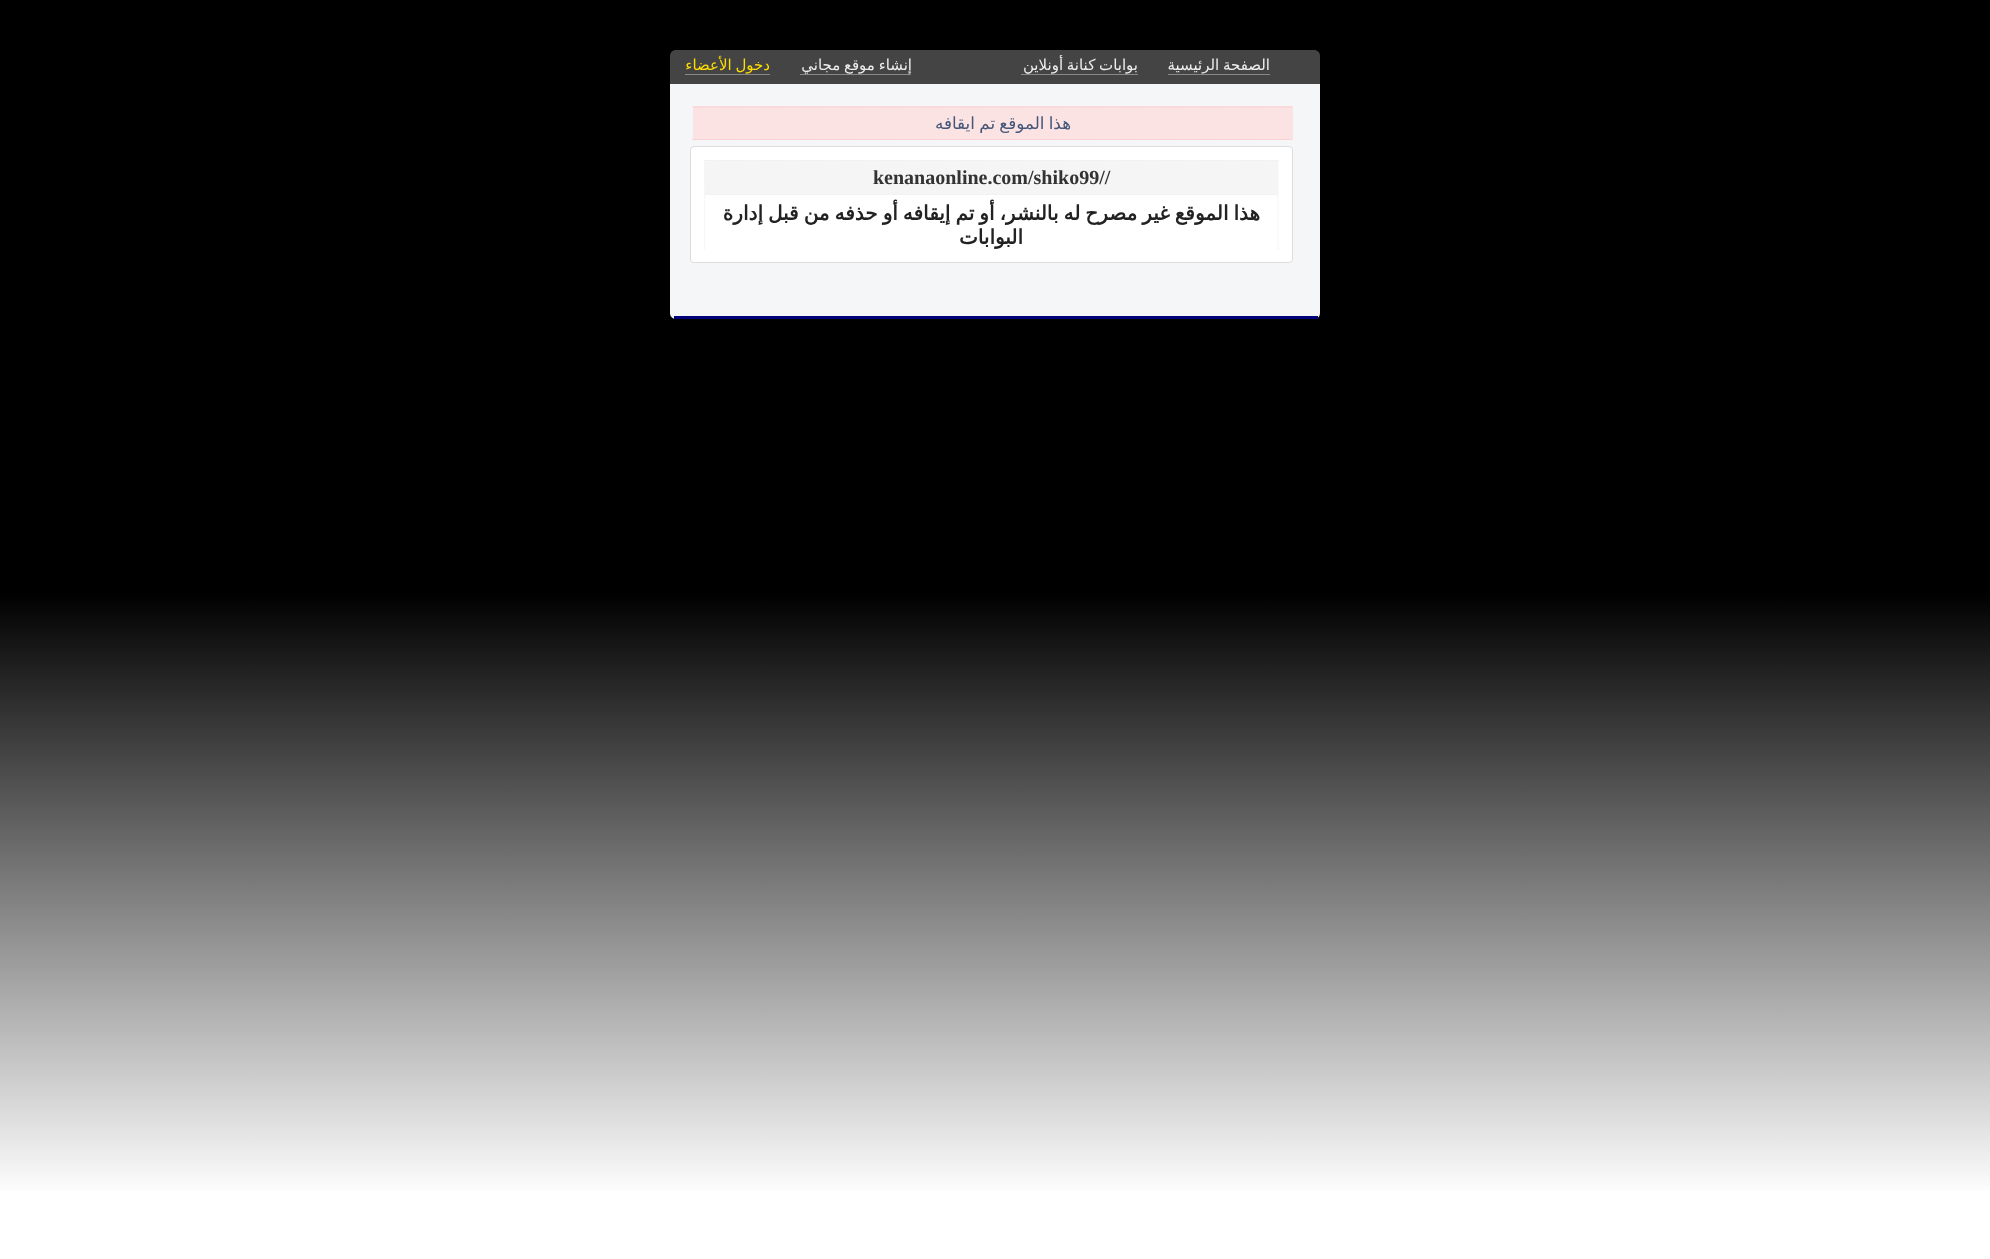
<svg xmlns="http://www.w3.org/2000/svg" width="1990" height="1259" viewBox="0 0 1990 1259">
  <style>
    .t1 { font: 15px DejaVu Sans; direction: rtl; fill: #eee; }
    .t2 { font: 15px DejaVu Sans; direction: rtl; fill: #fd0; }
    .t3 { font: 16.75px DejaVu Sans; direction: rtl; fill: #457; }
    .t4 { font: bold 20px Liberation Serif; fill: #333; }
    .t5 { font: bold 20px DejaVu Sans; direction: rtl; fill: #222; }
  </style>
  <defs>
    <linearGradient id="g1" gradientUnits="userSpaceOnUse" x1="0" y1="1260" x2="0" y2="0"><stop offset="0.05" stop-color="#fff"/><stop offset="0.53" stop-color="#000"/></linearGradient>
  </defs>
  <rect width="100%" height="100%" fill="#fff"/>
  <rect x="0" y="0" width="1990" height="1191" fill="url(#g1)"/>
  <path d="M676 50H1314C1317.5 50 1320 52.5 1320 56V85H670V56C670 52.5 672.5 50 676 50Z" fill="#444"/>
  <text x="1270" y="70" word-spacing="-1" class="t1">الصفحة الرئيسية</text>
  <rect x="1168" y="74" width="102" height="1" fill="#888"/>
  <text x="1138" y="70" word-spacing="-1" class="t1">بوابات كنانة أونلاين</text>
  <rect x="1021" y="74" width="117" height="1" fill="#888"/>
  <text x="912" y="70" word-spacing="-1" class="t1">إنشاء موقع مجاني</text>
  <rect x="800" y="74" width="111" height="1" fill="#888"/>
  <text x="770" y="70" word-spacing="-1" class="t2">دخول الأعضاء</text>
  <rect x="685" y="74" width="85" height="1" fill="#888"/>
  <path d="M670 84H1320V313C1320 316.5 1317.5 319 1314 319H676C672.5 319 670 316.5 670 313Z" fill="#f5f6f7"/>
  <rect x="674" y="316" width="644" height="3" fill="#00007a"/>
  <rect x="693" y="106" width="600" height="34" fill="#fbe3e4"/>
  <path d="M692.5 107H1292.5" fill="none" stroke="#fbc2c4" stroke-width="1.2" stroke-dasharray="1.25 1.25"/>
  <path d="M692.5 139.5H1292.5" fill="none" stroke="#fbc2c4" stroke-width="1.2" stroke-dasharray="1.25 1.25"/>
  <text x="1071" y="129" word-spacing="-1" class="t3">هذا الموقع تم ايقافه</text>
  <rect x="690.5" y="146.5" width="602" height="116" rx="3.5" fill="#fff" stroke="#ddd"/>
  <path d="M1278 160V249" fill="none" stroke="#eee" stroke-width="1.2" stroke-dasharray="1.25 1.25"/>
  <path d="M704.5 160V249" fill="none" stroke="#eee" stroke-width="1.2" stroke-dasharray="1.25 1.25"/>
  <rect x="705" y="160" width="573" height="35" fill="#f5f5f5"/>
  <path d="M705 160.5H1277.5" fill="none" stroke="#eee" stroke-width="1.2" stroke-dasharray="1.25 1.25"/>
  <path d="M705 194.5H1277.5" fill="none" stroke="#eee" stroke-width="1.2" stroke-dasharray="1.25 1.25"/>
  <text x="873" y="184" class="t4">kenanaonline.com/shiko99//</text>
  <text x="1260" y="220" word-spacing="-1.4" class="t5">هذا الموقع غير مصرح له بالنشر، أو تم إيقافه أو حذفه من قبل إدارة</text>
  <text x="1023" y="244" class="t5">البوابات</text>
</svg>
